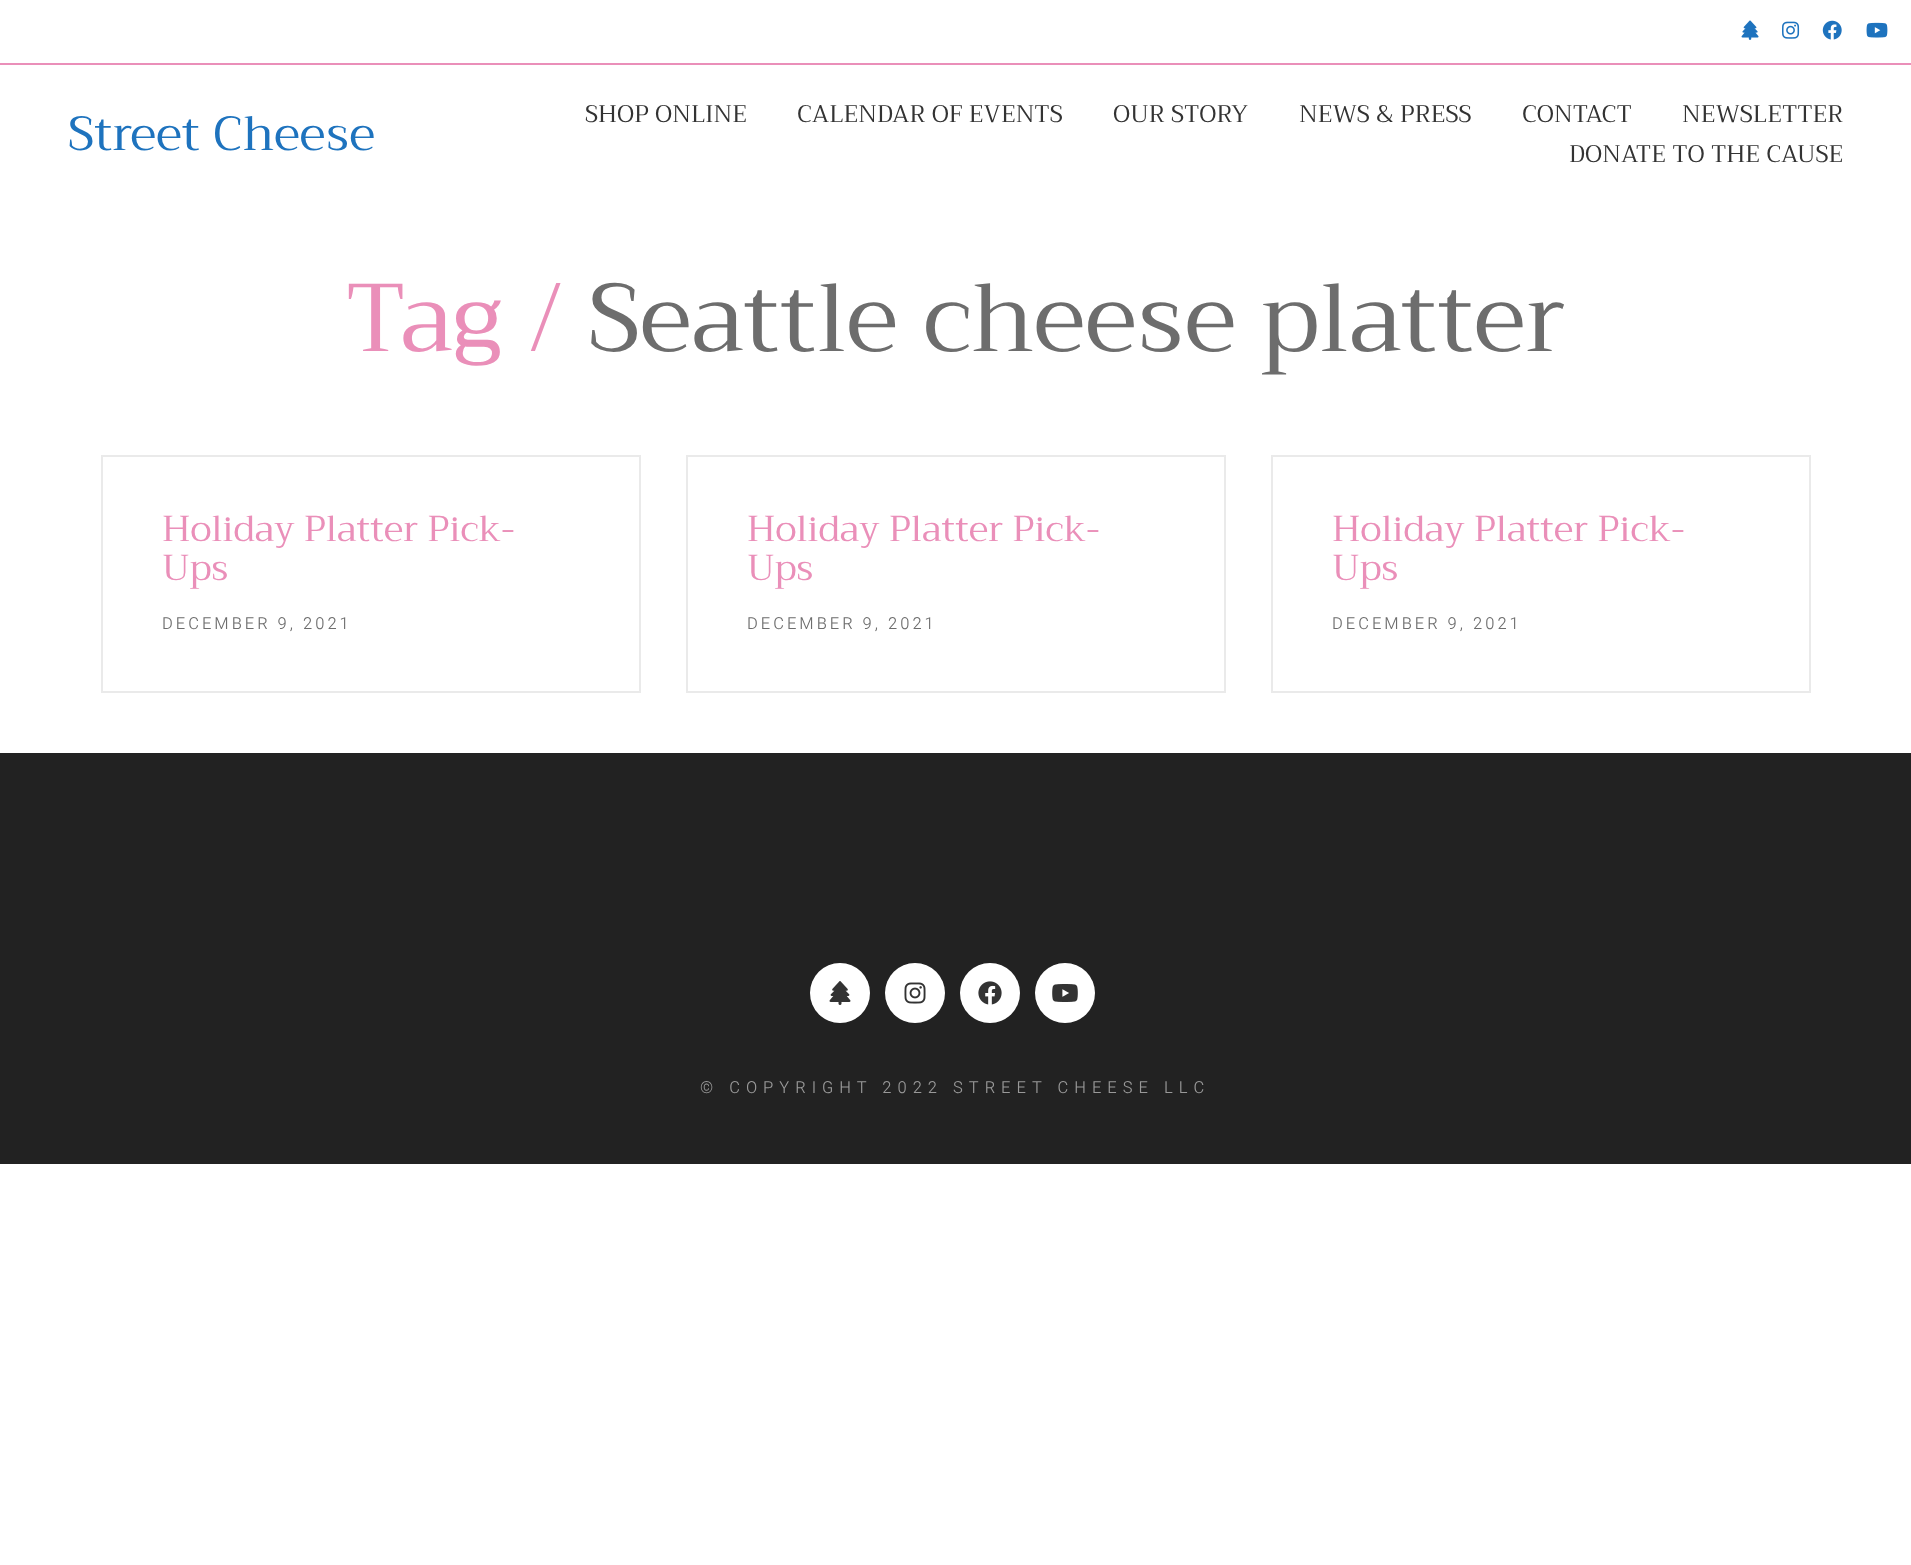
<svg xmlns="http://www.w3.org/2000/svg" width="1911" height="1565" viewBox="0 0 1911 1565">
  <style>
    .t1 { font: 48px Trirong; fill: #1e73be; }
    .t2 { font: 24px Trirong; fill: #333; }
    .t3 { font: 96px Trirong; fill: #ea8fb9; }
    .t4 { font: 96px Trirong; fill: #6d6d6d; }
    .t5 { font: 36px Trirong; fill: #ea8fb9; }
    .t6 { font: 300 16.5px Heebo; letter-spacing: 3px; fill: #6d6d6d; }
    .t7 { font: 300 16.5px Heebo; letter-spacing: 6px; fill: #999; }
  </style>
  <rect width="100%" height="100%" fill="#fff"/>
  <rect x="0" y="63" width="1911" height="2" fill="#ea8fb9"/>
  <image x="1741" y="20" width="18" height="20" href="images/1.png"/>
  <image x="1782" y="21" width="18" height="18" href="images/2.png"/>
  <image x="1822" y="20" width="20" height="20" href="images/3.png"/>
  <image x="1866" y="22" width="22" height="16" href="images/4.png"/>
  <text x="68" y="150" class="t1">Street Cheese</text>
  <text x="585" y="122" class="t2">SHOP ONLINE</text>
  <text x="797" y="122" class="t2">CALENDAR OF EVENTS</text>
  <text x="1113" y="122" class="t2">OUR STORY</text>
  <text x="1299" y="122" class="t2">NEWS &amp; PRESS</text>
  <text x="1522" y="122" class="t2">CONTACT</text>
  <text x="1682" y="122" class="t2">NEWSLETTER</text>
  <text x="1569" y="162" class="t2">DONATE TO THE CAUSE</text>
  <text x="345" y="351" class="t3">Tag /</text>
  <text x="588" y="351" class="t4">Seattle cheese platter</text>
  <rect x="102" y="456" width="538" height="236" fill="none" stroke="#eaeaea" stroke-width="2"/>
  <text x="162" y="541" class="t5">Holiday Platter Pick-</text>
  <text x="162" y="580" class="t5">Ups</text>
  <text x="162" y="629" class="t6">DECEMBER 9, 2021</text>
  <rect x="687" y="456" width="538" height="236" fill="none" stroke="#eaeaea" stroke-width="2"/>
  <text x="747" y="541" class="t5">Holiday Platter Pick-</text>
  <text x="747" y="580" class="t5">Ups</text>
  <text x="747" y="629" class="t6">DECEMBER 9, 2021</text>
  <rect x="1272" y="456" width="538" height="236" fill="none" stroke="#eaeaea" stroke-width="2"/>
  <text x="1332" y="541" class="t5">Holiday Platter Pick-</text>
  <text x="1332" y="580" class="t5">Ups</text>
  <text x="1332" y="629" class="t6">DECEMBER 9, 2021</text>
  <rect x="0" y="753" width="1911" height="411" fill="#222"/>
  <circle cx="840" cy="993" r="30" fill="#fff"/>
  <image x="829" y="981" width="22" height="24" href="images/5.png"/>
  <circle cx="915" cy="993" r="30" fill="#fff"/>
  <image x="904" y="982" width="22" height="22" href="images/6.png"/>
  <circle cx="990" cy="993" r="30" fill="#fff"/>
  <image x="978" y="981" width="24" height="24" href="images/7.png"/>
  <circle cx="1065" cy="993" r="30" fill="#fff"/>
  <image x="1052" y="984" width="26" height="18" href="images/8.png"/>
  <text x="700" y="1093" class="t7">© COPYRIGHT 2022 STREET CHEESE LLC</text>
</svg>
